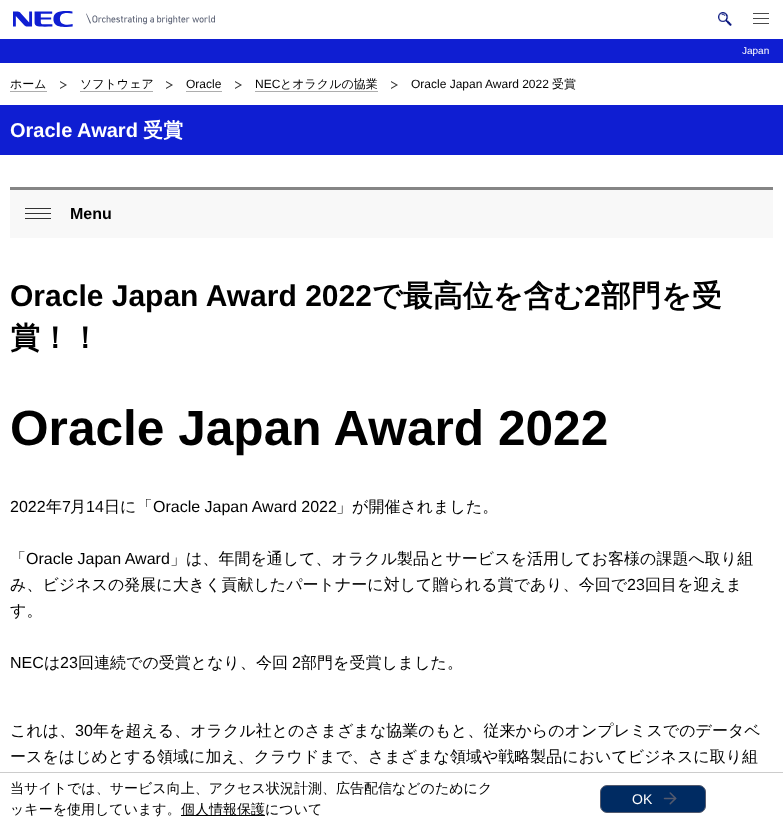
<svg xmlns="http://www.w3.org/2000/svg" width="783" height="825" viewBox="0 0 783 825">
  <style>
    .t1 { font: 10px Liberation Sans; fill: #fff; }
    .t2 { font: 500 12px WenQuanYi Zen Hei; fill: #000; }
    .t3 { font: 12px Liberation Sans; fill: #000; }
    .t4 { font: bold 20px Liberation Sans; fill: #fff; }
    .t5 { font: bold 20px WenQuanYi Zen Hei; fill: #fff; }
    .t6 { font: bold 16px Liberation Sans; fill: #000; }
    .t7 { font: bold 30px Liberation Sans; fill: #000; }
    .t8 { font: bold 30px WenQuanYi Zen Hei; fill: #000; }
    .t9 { font: bold 49.6px Liberation Sans; fill: #000; }
    .t10 { font: 16px Liberation Sans; fill: #000; }
    .t11 { font: 500 16px WenQuanYi Zen Hei; fill: #000; }
    .t12 { font: 500 14px WenQuanYi Zen Hei; fill: #000; }
    .t13 { font: 14px Liberation Sans; fill: #fff; }
  </style>
  <rect width="100%" height="100%" fill="#fff"/>
  <image x="13" y="11" width="202" height="16" href="images/1.png"/>
  <image x="718" y="12" width="14" height="14" href="images/2.png"/>
  <rect x="753" y="13" width="16" height="1" fill="#4a4a4a"/>
  <rect x="753" y="18" width="16" height="1" fill="#4a4a4a"/>
  <rect x="753" y="23" width="16" height="1" fill="#4a4a4a"/>
  <rect x="0" y="39" width="783" height="24" fill="#0f1ed2"/>
  <text x="742" y="54" class="t1">Japan</text>
  <text x="10" y="88" class="t2">ホーム</text>
  <rect x="10" y="91" width="37" height="1" fill="#adadad"/>
  <path d="M60 89V81L67 85Z" fill="#333"/>
  <path d="M58 89V81L65 85Z" fill="#fff"/>
  <text x="80" y="88" class="t2">ソフトウェア</text>
  <rect x="80" y="91" width="73" height="1" fill="#adadad"/>
  <path d="M166 89V81L173 85Z" fill="#333"/>
  <path d="M164 89V81L171 85Z" fill="#fff"/>
  <text x="186" y="88" class="t3">Oracle</text>
  <rect x="186" y="91" width="36" height="1" fill="#adadad"/>
  <path d="M235 89V81L242 85Z" fill="#333"/>
  <path d="M233 89V81L240 85Z" fill="#fff"/>
  <text x="255" y="88" class="t3">NEC</text>
  <rect x="255" y="91" width="123" height="1" fill="#adadad"/>
  <text x="280" y="88" class="t2">とオラクルの協業</text>
  <path d="M391 89V81L398 85Z" fill="#333"/>
  <path d="M389 89V81L396 85Z" fill="#fff"/>
  <text x="411" y="88" class="t3">Oracle Japan Award 2022</text>
  <text x="552" y="88" class="t2">受賞</text>
  <rect x="0" y="105" width="783" height="50" fill="#0f1ed2"/>
  <text x="10" y="137" class="t4">Oracle Award</text>
  <text x="143" y="137" class="t5">受賞</text>
  <rect x="10" y="190" width="763" height="48" fill="#f8f8f8"/>
  <rect x="10" y="187" width="763" height="3" fill="#858585"/>
  <rect x="25" y="208" width="26" height="1" fill="#333"/>
  <rect x="25" y="213" width="26" height="1" fill="#333"/>
  <rect x="25" y="218" width="26" height="1" fill="#333"/>
  <text x="70" y="219" class="t6">Menu</text>
  <text x="10" y="306" class="t7">Oracle Japan Award 2022</text>
  <text x="372" y="306" class="t8">で最高位を含む</text>
  <text x="584" y="306" class="t7">2</text>
  <text x="601" y="306" class="t8">部門を受</text>
  <text x="10" y="348" class="t8">賞！！</text>
  <text x="10" y="445" class="t9">Oracle Japan Award 2022</text>
  <text x="10" y="512" class="t10">2022</text>
  <text x="46" y="512" class="t11">年</text>
  <text x="62" y="512" class="t10">7</text>
  <text x="70" y="512" class="t11">月</text>
  <text x="86" y="512" class="t10">14</text>
  <text x="104" y="512" class="t11">日に「</text>
  <text x="153" y="512" class="t10">Oracle Japan Award 2022</text>
  <text x="336" y="512" class="t11">」が開催されました。</text>
  <text x="10" y="564" class="t11">「</text>
  <text x="26" y="564" class="t10">Oracle Japan Award</text>
  <text x="170" y="564" class="t11">」は、年間を通して、オラクル製品とサービスを活用してお客様の課題へ取り組</text>
  <text x="10" y="590" class="t11">み、ビジネスの発展に大きく貢献したパートナーに対して贈られる賞であり、今回で</text>
  <text x="627" y="590" class="t10">23</text>
  <text x="645" y="590" class="t11">回目を迎えま</text>
  <text x="10" y="616" class="t11">す。</text>
  <text x="10" y="668" class="t10">NEC</text>
  <text x="44" y="668" class="t11">は</text>
  <text x="60" y="668" class="t10">23</text>
  <text x="78" y="668" class="t11">回連続での受賞となり、今回</text>
  <text x="292" y="668" class="t10">2</text>
  <text x="301" y="668" class="t11">部門を受賞しました。</text>
  <text x="10" y="736" class="t11">これは、</text>
  <text x="75" y="736" class="t10">30</text>
  <text x="93" y="736" class="t11">年を超える、オラクル社とのさまざまな協業のもと、従来からのオンプレミスでのデータベ</text>
  <text x="10" y="762" class="t11">ースをはじめとする領域に加え、クラウドまで、さまざまな領域や戦略製品においてビジネスに取り組</text>
  <rect x="0" y="772" width="783" height="1" fill="#ccc"/>
  <text x="10" y="793" class="t12">当サイトでは、サービス向上、アクセス状況計測、広告配信などのためにク</text>
  <text x="10" y="814" class="t12">ッキーを使用しています。</text>
  <rect x="181" y="815" width="84" height="1" fill="#000"/>
  <text x="181" y="814" class="t12">個人情報保護について</text>
  <rect x="600.5" y="785.5" width="105" height="27" rx="6.5" fill="#002b62" stroke="#535a6e"/>
  <text x="632" y="804" class="t13">OK</text>
  <image x="663" y="792" width="14" height="13" href="images/3.png"/>
</svg>
